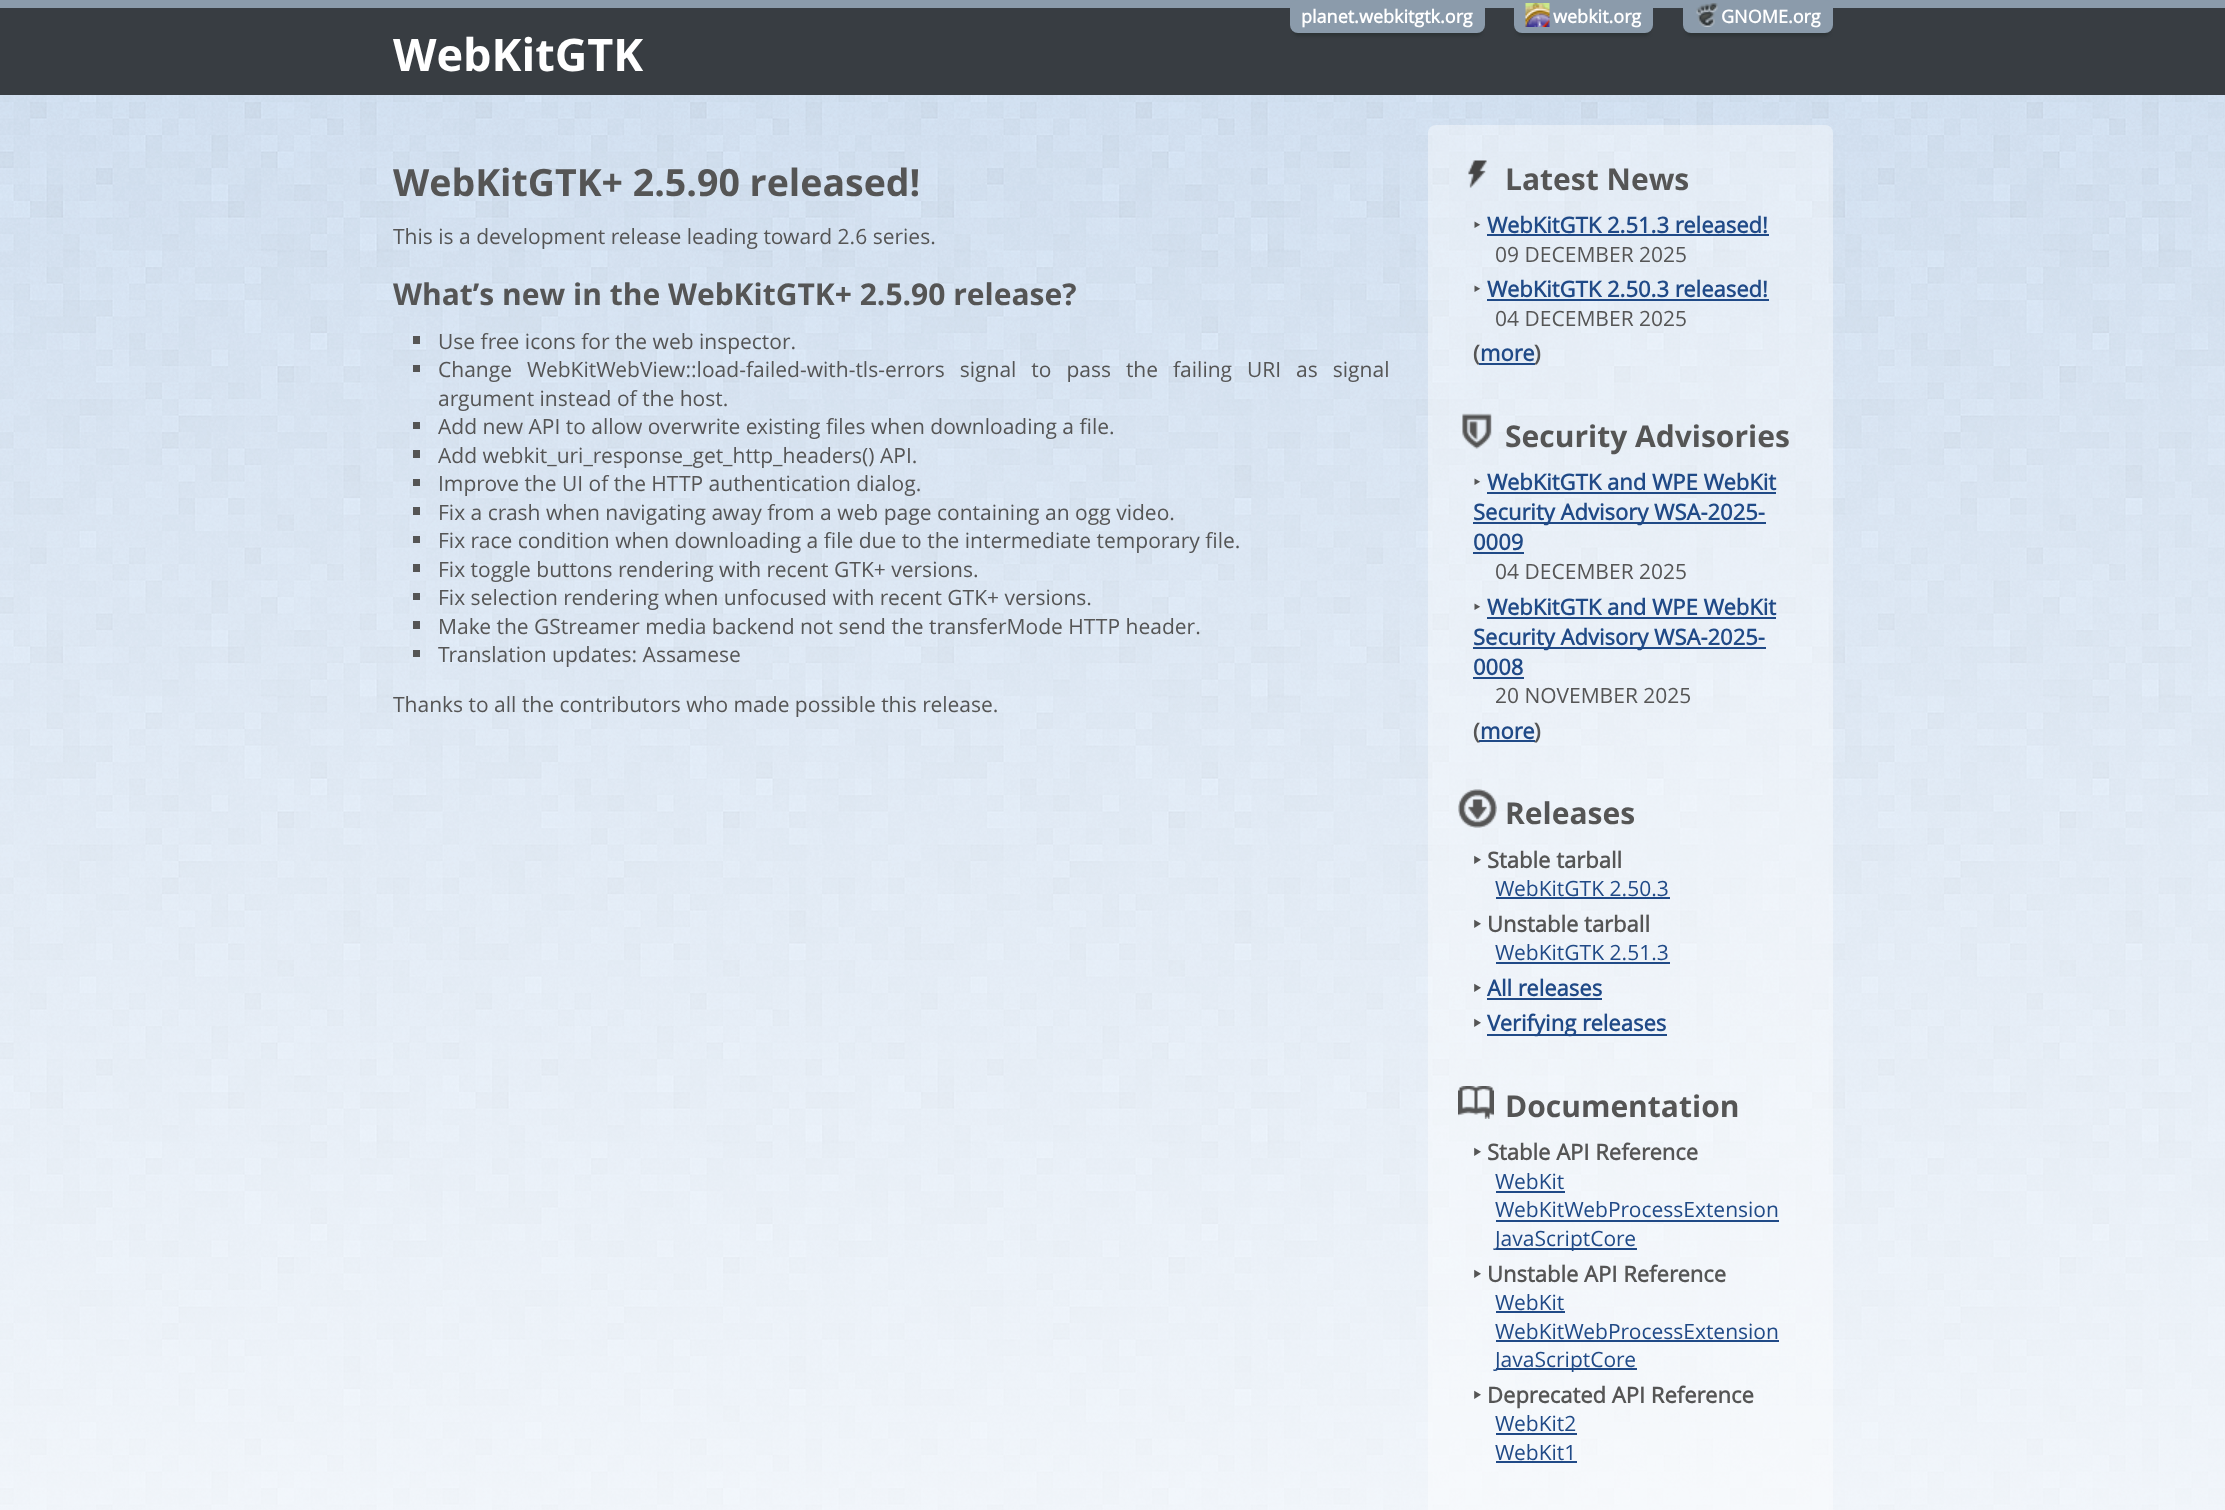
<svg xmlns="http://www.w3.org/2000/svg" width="2225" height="1510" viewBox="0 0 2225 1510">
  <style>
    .t1 { font: bold 18px 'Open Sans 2'; fill: #fff; }
    .t2 { font: bold 45px Open Sans; fill: #fff; }
    .t3 { font: bold 37.5px Open Sans; fill: #555; }
    .t4 { font: 21px Open Sans; fill: #555; }
    .t5 { font: bold 30px Open Sans; fill: #555; }
    .t6 { font: 22px Noto Sans; fill: #555; }
    .t7 { font: bold 22px 'Open Sans 2'; fill: #204a87; }
    .t8 { font: bold 22px 'Open Sans 2'; fill: #555; }
    .t9 { font: bold 22px Noto Sans; fill: #555; }
    .t10 { font: 21px Open Sans; fill: #204a87; }
  </style>
  <rect width="100%" height="100%" fill="#fff"/>
  <image x="0" y="95" width="2225" height="1415" href="images/1.png"/>
  <rect x="0" y="0" width="2225" height="8" fill="#8b9bab"/>
  <rect x="0" y="8" width="2225" height="87" fill="#383d42"/>
  <rect x="1293" y="9" width="189" height="27" rx="5" fill="#2e3436" filter="blur(1.5px)"/>
  <rect x="1290" y="0" width="195" height="33" rx="8" fill="#8b9bab"/>
  <text x="1301" y="23" class="t1">planet.webkitgtk.org</text>
  <rect x="1517" y="9" width="133" height="27" rx="5" fill="#2e3436" filter="blur(1.5px)"/>
  <rect x="1514" y="0" width="139" height="33" rx="8" fill="#8b9bab"/>
  <image x="1525" y="3" width="25" height="24" href="images/2.png"/>
  <text x="1553" y="23" class="t1">webkit.org</text>
  <rect x="1686" y="9" width="144" height="27" rx="5" fill="#2e3436" filter="blur(1.5px)"/>
  <rect x="1683" y="0" width="150" height="33" rx="8" fill="#8b9bab"/>
  <image x="1696" y="3" width="22" height="24" href="images/3.png"/>
  <text x="1721" y="23" class="t1">GNOME.org</text>
  <text x="393" y="71" class="t2">WebKitGTK</text>
  <text x="393" y="196" class="t3">WebKitGTK+ 2.5.90 released!</text>
  <text x="393" y="244" class="t4">This is a development release leading toward 2.6 series.</text>
  <text x="393" y="305" class="t5">What’s new in the WebKitGTK+ 2.5.90 release?</text>
  <rect x="413" y="336" width="7" height="8" fill="#555"/>
  <text x="438" y="349" class="t4">Use free icons for the web inspector.</text>
  <rect x="413" y="365" width="7" height="7" fill="#555"/>
  <text x="438" y="377" word-spacing="9.5" class="t4">Change WebKitWebView::load-failed-with-tls-errors signal to pass the failing URI as signal</text>
  <text x="438" y="406" class="t4">argument instead of the host.</text>
  <rect x="413" y="422" width="7" height="7" fill="#555"/>
  <text x="438" y="434" class="t4">Add new API to allow overwrite existing files when downloading a file.</text>
  <rect x="413" y="450" width="7" height="8" fill="#555"/>
  <text x="438" y="463" class="t4">Add webkit_uri_response_get_http_headers() API.</text>
  <rect x="413" y="479" width="7" height="7" fill="#555"/>
  <text x="438" y="491" class="t4">Improve the UI of the HTTP authentication dialog.</text>
  <rect x="413" y="507" width="7" height="8" fill="#555"/>
  <text x="438" y="520" class="t4">Fix a crash when navigating away from a web page containing an ogg video.</text>
  <rect x="413" y="536" width="7" height="7" fill="#555"/>
  <text x="438" y="548" class="t4">Fix race condition when downloading a file due to the intermediate temporary file.</text>
  <rect x="413" y="564" width="7" height="8" fill="#555"/>
  <text x="438" y="577" class="t4">Fix toggle buttons rendering with recent GTK+ versions.</text>
  <rect x="413" y="593" width="7" height="7" fill="#555"/>
  <text x="438" y="605" class="t4">Fix selection rendering when unfocused with recent GTK+ versions.</text>
  <rect x="413" y="621" width="7" height="8" fill="#555"/>
  <text x="438" y="634" class="t4">Make the GStreamer media backend not send the transferMode HTTP header.</text>
  <rect x="413" y="650" width="7" height="7" fill="#555"/>
  <text x="438" y="662" class="t4">Translation updates: Assamese</text>
  <text x="393" y="712" class="t4">Thanks to all the contributors who made possible this release.</text>
  <rect x="1428" y="125" width="405" height="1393" rx="8" fill="#ffffff66"/>
  <image x="1468" y="160" width="19" height="28" href="images/4.png"/>
  <text x="1505" y="190" class="t5">Latest News</text>
  <text x="1473" y="233" class="t6">‣</text>
  <text x="1487" y="233" class="t7">WebKitGTK 2.51.3 released!</text>
  <rect x="1487" y="234" width="282" height="2" fill="#204a87"/>
  <text x="1495" y="262" class="t4">09 DECEMBER 2025</text>
  <text x="1473" y="297" class="t6">‣</text>
  <text x="1487" y="297" class="t7">WebKitGTK 2.50.3 released!</text>
  <rect x="1487" y="299" width="282" height="2" fill="#204a87"/>
  <text x="1495" y="326" class="t4">04 DECEMBER 2025</text>
  <text x="1473" y="361" class="t8">(</text>
  <text x="1480" y="361" class="t7">more</text>
  <rect x="1479" y="363" width="56" height="2" fill="#204a87"/>
  <text x="1534" y="361" class="t8">)</text>
  <image x="1462" y="413" width="30" height="36" href="images/5.png"/>
  <text x="1505" y="447" class="t5">Security Advisories</text>
  <text x="1473" y="490" class="t6">‣</text>
  <text x="1487" y="490" class="t7">WebKitGTK and WPE WebKit</text>
  <rect x="1487" y="492" width="289" height="2" fill="#204a87"/>
  <rect x="1473" y="522" width="293" height="2" fill="#204a87"/>
  <text x="1473" y="520" class="t7">Security Advisory WSA-2025-</text>
  <text x="1473" y="550" class="t7">0009</text>
  <rect x="1473" y="552" width="51" height="2" fill="#204a87"/>
  <text x="1495" y="579" class="t4">04 DECEMBER 2025</text>
  <text x="1473" y="615" class="t6">‣</text>
  <text x="1487" y="615" class="t7">WebKitGTK and WPE WebKit</text>
  <rect x="1487" y="617" width="289" height="2" fill="#204a87"/>
  <rect x="1473" y="647" width="293" height="2" fill="#204a87"/>
  <text x="1473" y="645" class="t7">Security Advisory WSA-2025-</text>
  <text x="1473" y="675" class="t7">0008</text>
  <rect x="1473" y="677" width="51" height="2" fill="#204a87"/>
  <text x="1495" y="703" class="t4">20 NOVEMBER 2025</text>
  <text x="1473" y="739" class="t8">(</text>
  <text x="1480" y="739" class="t7">more</text>
  <rect x="1479" y="740" width="56" height="2" fill="#204a87"/>
  <text x="1534" y="739" class="t8">)</text>
  <image x="1458" y="789" width="39" height="39" href="images/6.png"/>
  <text x="1505" y="824" class="t5">Releases</text>
  <text x="1473" y="868" class="t9">‣</text>
  <text x="1487" y="868" class="t8">Stable tarball</text>
  <text x="1495" y="896" class="t10">WebKitGTK 2.50.3</text>
  <rect x="1496" y="897" width="174" height="2" fill="#204a87"/>
  <text x="1473" y="932" class="t9">‣</text>
  <text x="1487" y="932" class="t8">Unstable tarball</text>
  <text x="1495" y="960" class="t10">WebKitGTK 2.51.3</text>
  <rect x="1496" y="962" width="174" height="2" fill="#204a87"/>
  <text x="1473" y="996" class="t9">‣</text>
  <text x="1487" y="996" class="t7">All releases</text>
  <rect x="1487" y="998" width="115" height="2" fill="#204a87"/>
  <text x="1473" y="1031" class="t9">‣</text>
  <rect x="1487" y="1034" width="180" height="2" fill="#204a87"/>
  <text x="1487" y="1031" class="t7">Verifying releases</text>
  <image x="1458" y="1086" width="36" height="33" href="images/7.png"/>
  <text x="1505" y="1117" class="t5">Documentation</text>
  <text x="1473" y="1160" class="t9">‣</text>
  <text x="1487" y="1160" class="t8">Stable API Reference</text>
  <text x="1495" y="1189" class="t10">WebKit</text>
  <rect x="1496" y="1191" width="69" height="2" fill="#204a87"/>
  <text x="1495" y="1217" class="t10">WebKitWebProcessExtension</text>
  <rect x="1496" y="1220" width="283" height="2" fill="#204a87"/>
  <rect x="1496" y="1248" width="141" height="2" fill="#204a87"/>
  <text x="1495" y="1246" class="t10">JavaScriptCore</text>
  <text x="1473" y="1282" class="t9">‣</text>
  <text x="1487" y="1282" class="t8">Unstable API Reference</text>
  <text x="1495" y="1310" class="t10">WebKit</text>
  <rect x="1496" y="1311" width="69" height="2" fill="#204a87"/>
  <text x="1495" y="1339" class="t10">WebKitWebProcessExtension</text>
  <rect x="1496" y="1340" width="283" height="2" fill="#204a87"/>
  <rect x="1496" y="1368" width="141" height="2" fill="#204a87"/>
  <text x="1495" y="1367" class="t10">JavaScriptCore</text>
  <text x="1473" y="1403" class="t9">‣</text>
  <text x="1487" y="1403" class="t8">Deprecated API Reference</text>
  <text x="1495" y="1431" class="t10">WebKit2</text>
  <rect x="1496" y="1433" width="81" height="2" fill="#204a87"/>
  <text x="1495" y="1460" class="t10">WebKit1</text>
  <rect x="1496" y="1461" width="81" height="2" fill="#204a87"/>
</svg>
